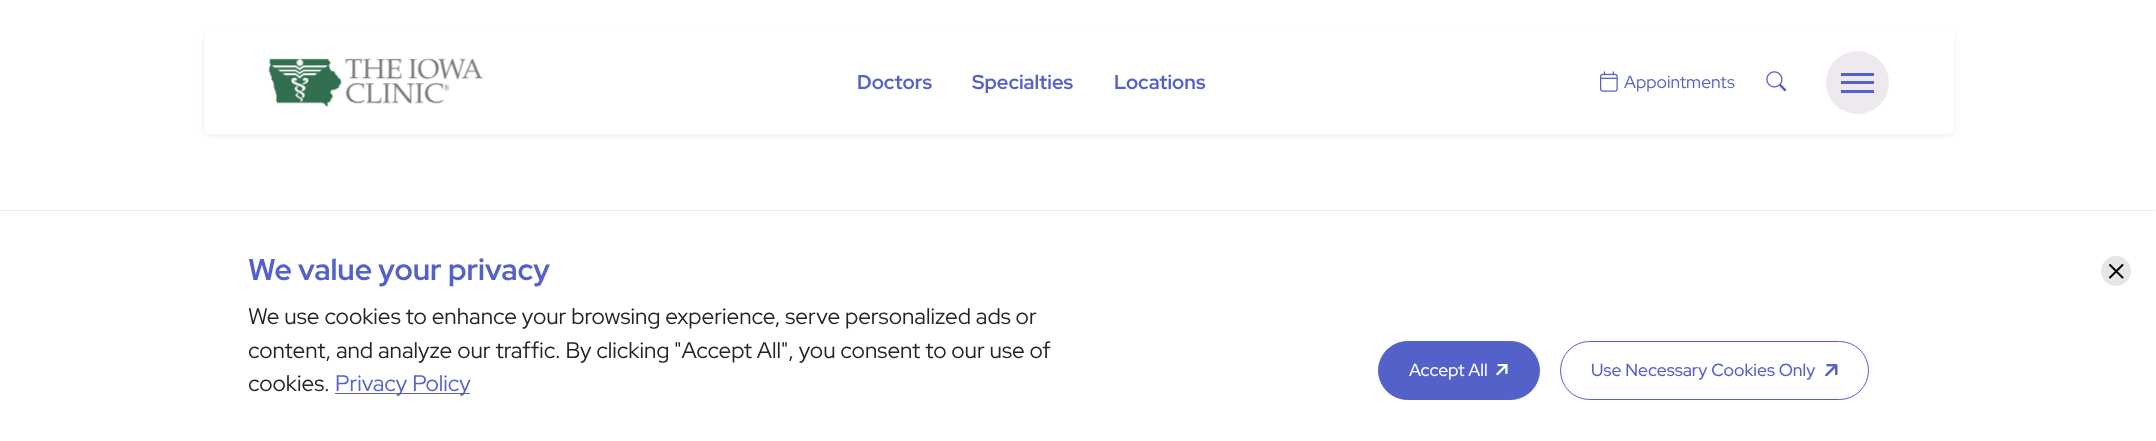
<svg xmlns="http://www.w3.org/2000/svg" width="2156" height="441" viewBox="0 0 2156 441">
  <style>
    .t1 { font: bold 20px Red Hat Display; fill: #5461c8; }
    .t2 { font: 17.5px Red Hat Display; fill: #5461c8; }
    .t3 { font: bold 30px Red Hat Display; fill: #5461c8; }
    .t4 { font: 22.5px Red Hat Display; fill: #212529; }
    .t5 { font: 22.5px Red Hat Display; fill: #5461c8; }
    .t6 { font: 500 17.5px Red Hat Display; fill: #fff; }
    .t7 { font: 500 17.5px Red Hat Display; fill: #5461c8; }
  </style>
  <rect width="100%" height="100%" fill="#fff"/>
  <rect x="204" y="34" width="1750" height="102" rx="6" fill="#00000012" filter="blur(2.5px)"/>
  <rect x="204" y="31" width="1750" height="103" rx="6" fill="#fff"/>
  <image x="268" y="58" width="215" height="49" href="images/1.png"/>
  <text x="857" y="89" class="t1">Doctors</text>
  <text x="972" y="89" class="t1">Specialties</text>
  <text x="1114" y="89" class="t1">Locations</text>
  <image x="1600" y="71" width="18" height="21" href="images/2.png"/>
  <text x="1624" y="88" class="t2">Appointments</text>
  <image x="1766" y="71" width="21" height="21" href="images/3.png"/>
  <circle cx="1857.5" cy="82.5" r="31.5" fill="#ede9ef"/>
  <rect x="1841" y="81" width="33" height="3" fill="#5461c8"/>
  <rect x="1841" y="73" width="33" height="3" fill="#5461c8"/>
  <rect x="1841" y="90" width="33" height="3" fill="#5461c8"/>
  <path d="M0 210H2156L2155 211H1Z" fill="#ede9ef"/>
  <text x="248" y="280" class="t3">We value your privacy</text>
  <text x="248" y="324" class="t4">We use cookies to enhance your browsing experience, serve personalized ads or</text>
  <text x="248" y="358" class="t4">content, and analyze our traffic. By clicking "Accept All", you consent to our use of</text>
  <text x="248" y="391" class="t4">cookies.</text>
  <rect x="335" y="393" width="135" height="1" fill="#5461c8"/>
  <text x="335" y="391" class="t5">Privacy Policy</text>
  <circle cx="2116" cy="271" r="15" fill="#e6e6e6"/>
  <path d="M2110 265L2122.5 277.5M2110 277.5L2122.5 265" fill="none" stroke="#000" stroke-width="1.9" stroke-linecap="round" stroke-linejoin="round"/>
  <rect x="1378.5" y="341.5" width="161" height="58" rx="29" fill="#5461c8" stroke="#5461c8"/>
  <text x="1409" y="376" class="t6">Accept All</text>
  <image x="1496" y="364" width="12" height="12" href="images/4.png"/>
  <rect x="1560.5" y="341.5" width="308" height="58" rx="29" fill="none" stroke="#5461c8"/>
  <text x="1591" y="376" class="t7">Use Necessary Cookies Only</text>
  <image x="1825" y="364" width="13" height="12" href="images/5.png"/>
</svg>
